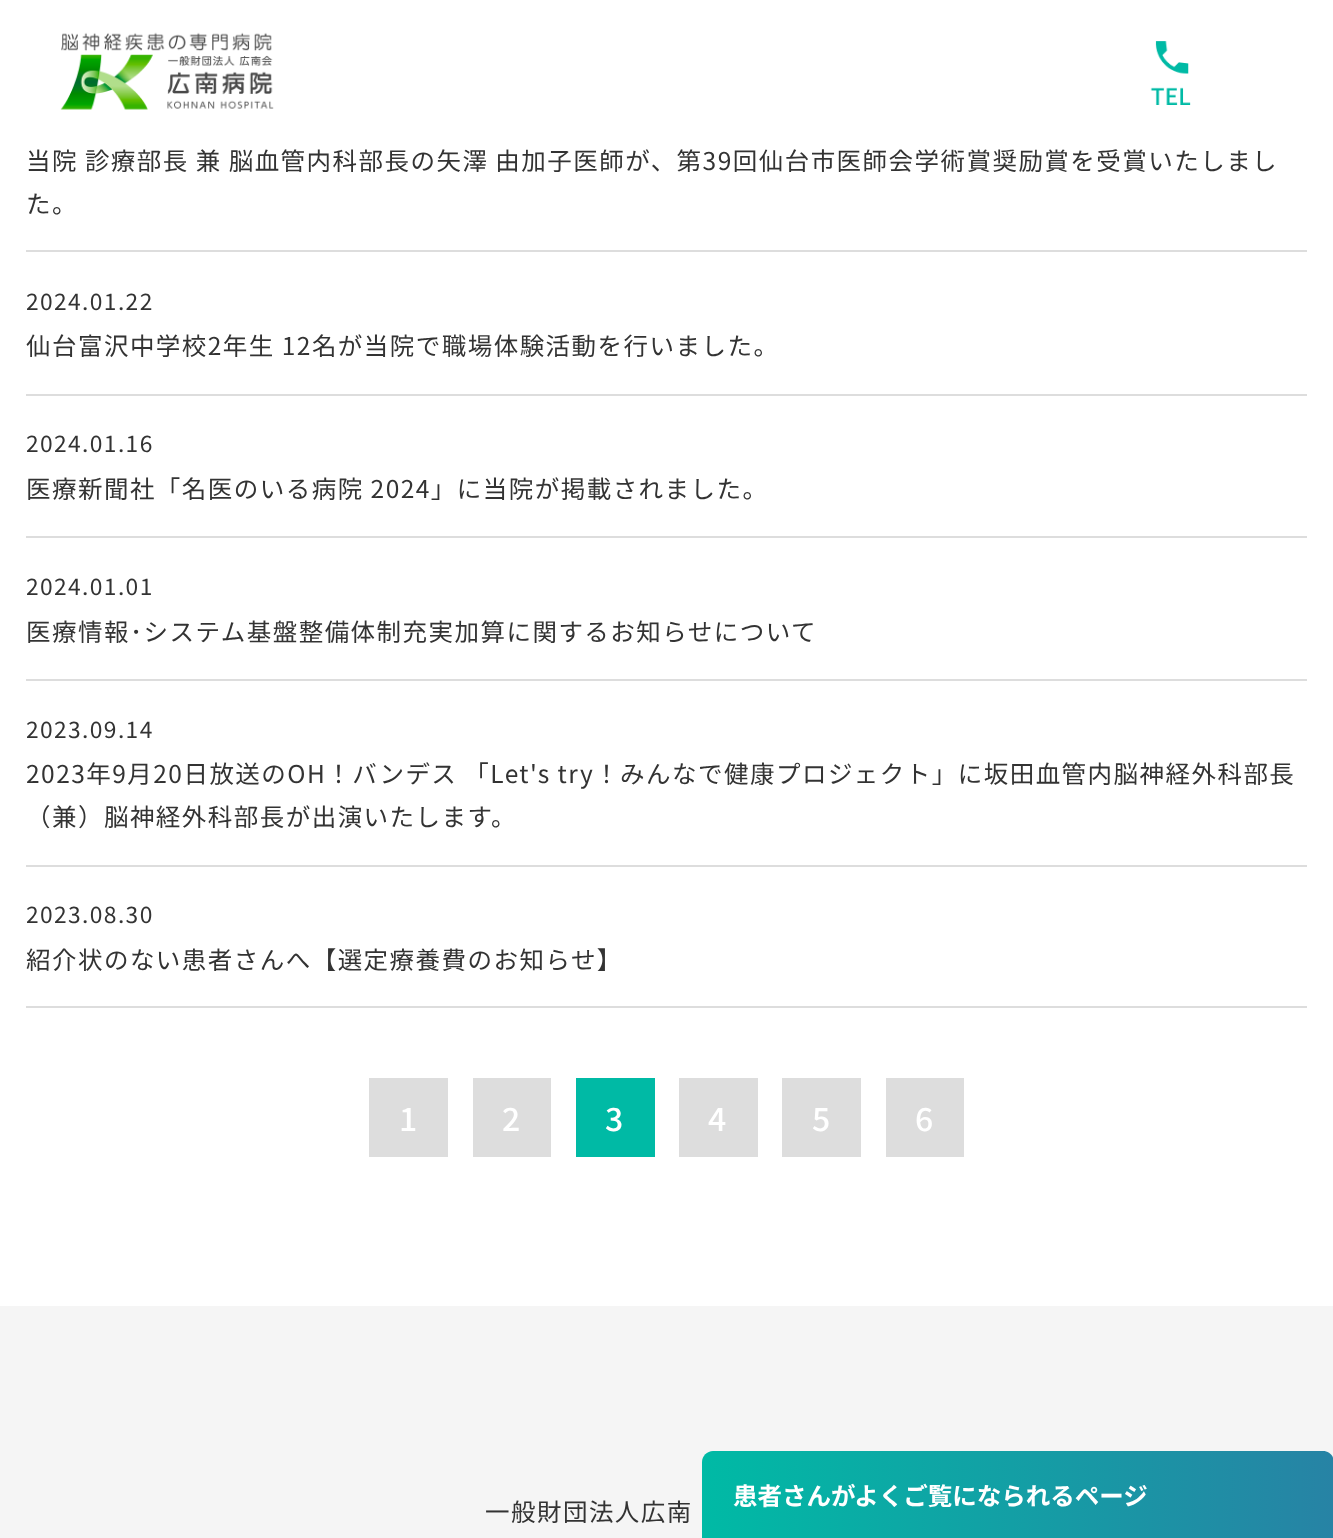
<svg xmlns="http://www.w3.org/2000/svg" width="1333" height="1538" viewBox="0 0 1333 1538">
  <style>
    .t1 { font: 24.5px Noto Sans JP; letter-spacing: 1.47px; fill: #333; }
    .t2 { font: 22.75px Noto Sans JP; letter-spacing: 1.4px; fill: #333; }
    .t3 { font: 500 32px Noto Sans JP; letter-spacing: 2px; fill: #fff; }
    .t4 { font: bold 24.5px Noto Sans JP; fill: #fff; }
  </style>
  <defs>
    <linearGradient id="g1" gradientUnits="userSpaceOnUse" x1="702" y1="1495" x2="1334" y2="1495"><stop offset="0" stop-color="#00baa5"/><stop offset="1" stop-color="#2783a5"/></linearGradient>
  </defs>
  <rect width="100%" height="100%" fill="#fff"/>
  <image x="60" y="32" width="214" height="78" href="images/1.png"/>
  <image x="1150" y="41" width="41" height="64" href="images/2.png"/>
  <rect x="26" y="250" width="1281" height="2" fill="#ddd"/>
  <text x="26" y="170" class="t1">当院 診療部長 兼 脳血管内科部長の矢澤 由加子医師が、第39回仙台市医師会学術賞奨励賞を受賞いたしまし</text>
  <text x="26" y="213" class="t1">た。</text>
  <rect x="26" y="394" width="1281" height="2" fill="#ddd"/>
  <text x="26" y="310" class="t2">2024.01.22</text>
  <text x="26" y="355" class="t1">仙台富沢中学校2年生 12名が当院で職場体験活動を行いました。</text>
  <rect x="26" y="536" width="1281" height="2" fill="#ddd"/>
  <text x="26" y="452" class="t2">2024.01.16</text>
  <text x="26" y="498" class="t1">医療新聞社「名医のいる病院 2024」に当院が掲載されました。</text>
  <rect x="26" y="679" width="1281" height="2" fill="#ddd"/>
  <text x="26" y="595" class="t2">2024.01.01</text>
  <text x="26" y="641" class="t1">医療情報･システム基盤整備体制充実加算に関するお知らせについて</text>
  <rect x="26" y="865" width="1281" height="2" fill="#ddd"/>
  <text x="26" y="738" class="t2">2023.09.14</text>
  <text x="26" y="783" class="t1">2023年9月20日放送のOH！バンデス 「Let's try！みんなで健康プロジェクト」に坂田血管内脳神経外科部長</text>
  <text x="26" y="826" class="t1">（兼）脳神経外科部長が出演いたします。</text>
  <rect x="26" y="1006" width="1281" height="2" fill="#ddd"/>
  <text x="26" y="923" class="t2">2023.08.30</text>
  <text x="26" y="969" class="t1">紹介状のない患者さんへ【選定療養費のお知らせ】</text>
  <rect x="369" y="1078" width="79" height="79" fill="#ddd"/>
  <text x="399" y="1131" class="t3">1</text>
  <rect x="473" y="1078" width="78" height="79" fill="#ddd"/>
  <text x="502" y="1131" class="t3">2</text>
  <rect x="576" y="1078" width="79" height="79" fill="#00baa5"/>
  <text x="605" y="1131" class="t3">3</text>
  <rect x="679" y="1078" width="79" height="79" fill="#ddd"/>
  <text x="708" y="1131" class="t3">4</text>
  <rect x="782" y="1078" width="79" height="79" fill="#ddd"/>
  <text x="812" y="1131" class="t3">5</text>
  <rect x="886" y="1078" width="78" height="79" fill="#ddd"/>
  <text x="915" y="1131" class="t3">6</text>
  <rect x="0" y="1306" width="1333" height="232" fill="#f5f5f5"/>
  <path d="M713 1451H1323C1329 1451 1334 1456 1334 1462V1538H702V1462C702 1456 707 1451 713 1451Z" fill="url(#g1)"/>
  <text x="733" y="1505" class="t4">患者さんがよくご覧になられるページ</text>
  <text x="485" y="1521" class="t1">一般財団法人広南</text>
</svg>
